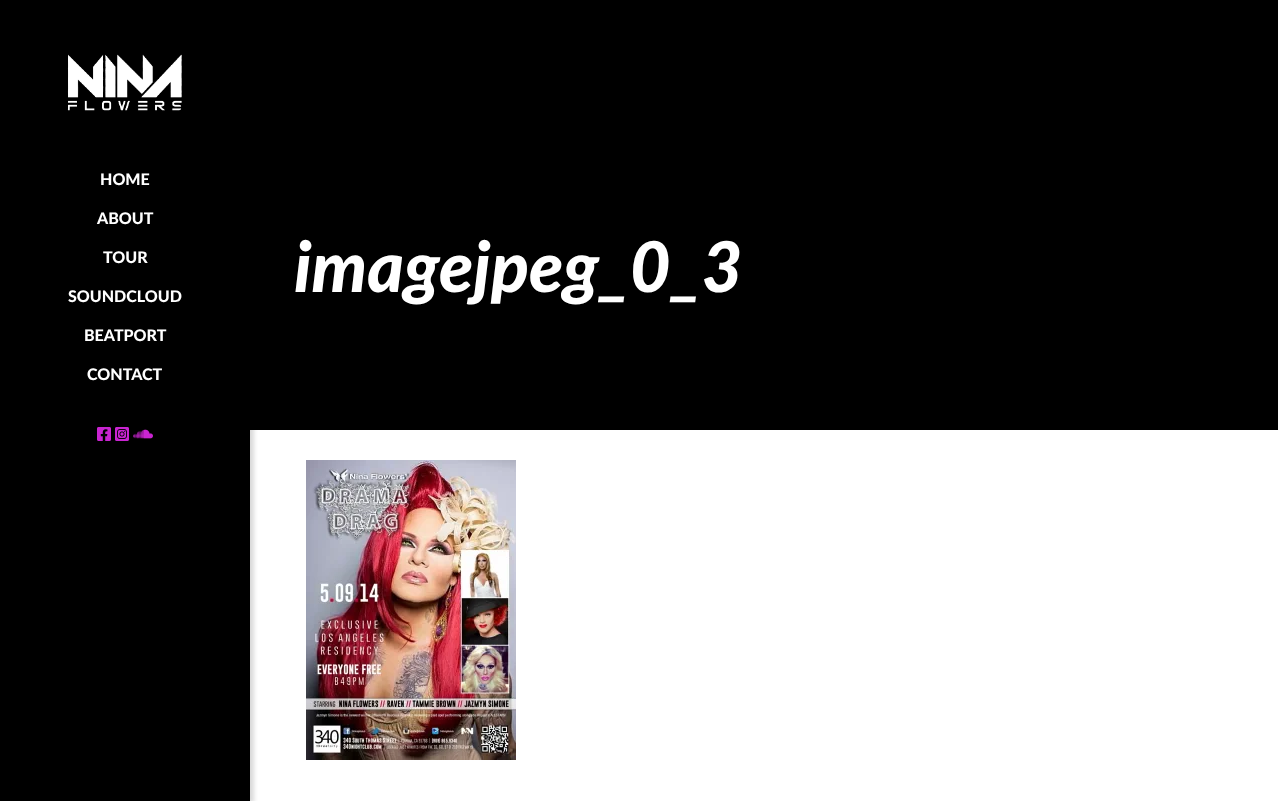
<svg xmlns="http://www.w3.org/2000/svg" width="1278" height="801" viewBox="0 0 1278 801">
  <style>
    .t1 { font: 900 16px Lato; fill: #fff; }
    .t2 { font: italic 900 70px Lato; fill: #fff; }
  </style>
  <rect width="100%" height="100%" fill="#fff"/>
  <rect x="250" y="0" width="1028" height="430" fill="#000"/>
  <rect x="0" y="-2" width="254" height="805" fill="#00000026" filter="blur(2px)"/>
  <rect x="0" y="0" width="250" height="801" fill="#000"/>
  <image x="67" y="54" width="115" height="57" href="images/1.png"/>
  <text x="100" y="185" class="t1">HOME</text>
  <text x="97" y="224" class="t1">ABOUT</text>
  <text x="103" y="263" class="t1">TOUR</text>
  <text x="68" y="302" class="t1">SOUNDCLOUD</text>
  <text x="84" y="341" class="t1">BEATPORT</text>
  <text x="87" y="380" class="t1">CONTACT</text>
  <image x="97" y="427" width="14" height="14" href="images/2.png"/>
  <image x="115" y="427" width="14" height="14" href="images/3.png"/>
  <image x="133" y="429" width="20" height="10" href="images/4.png"/>
  <text x="294" y="292" class="t2">imagejpeg_0_3</text>
  <image x="306" y="460" width="210" height="300" href="images/5.png"/>
</svg>
